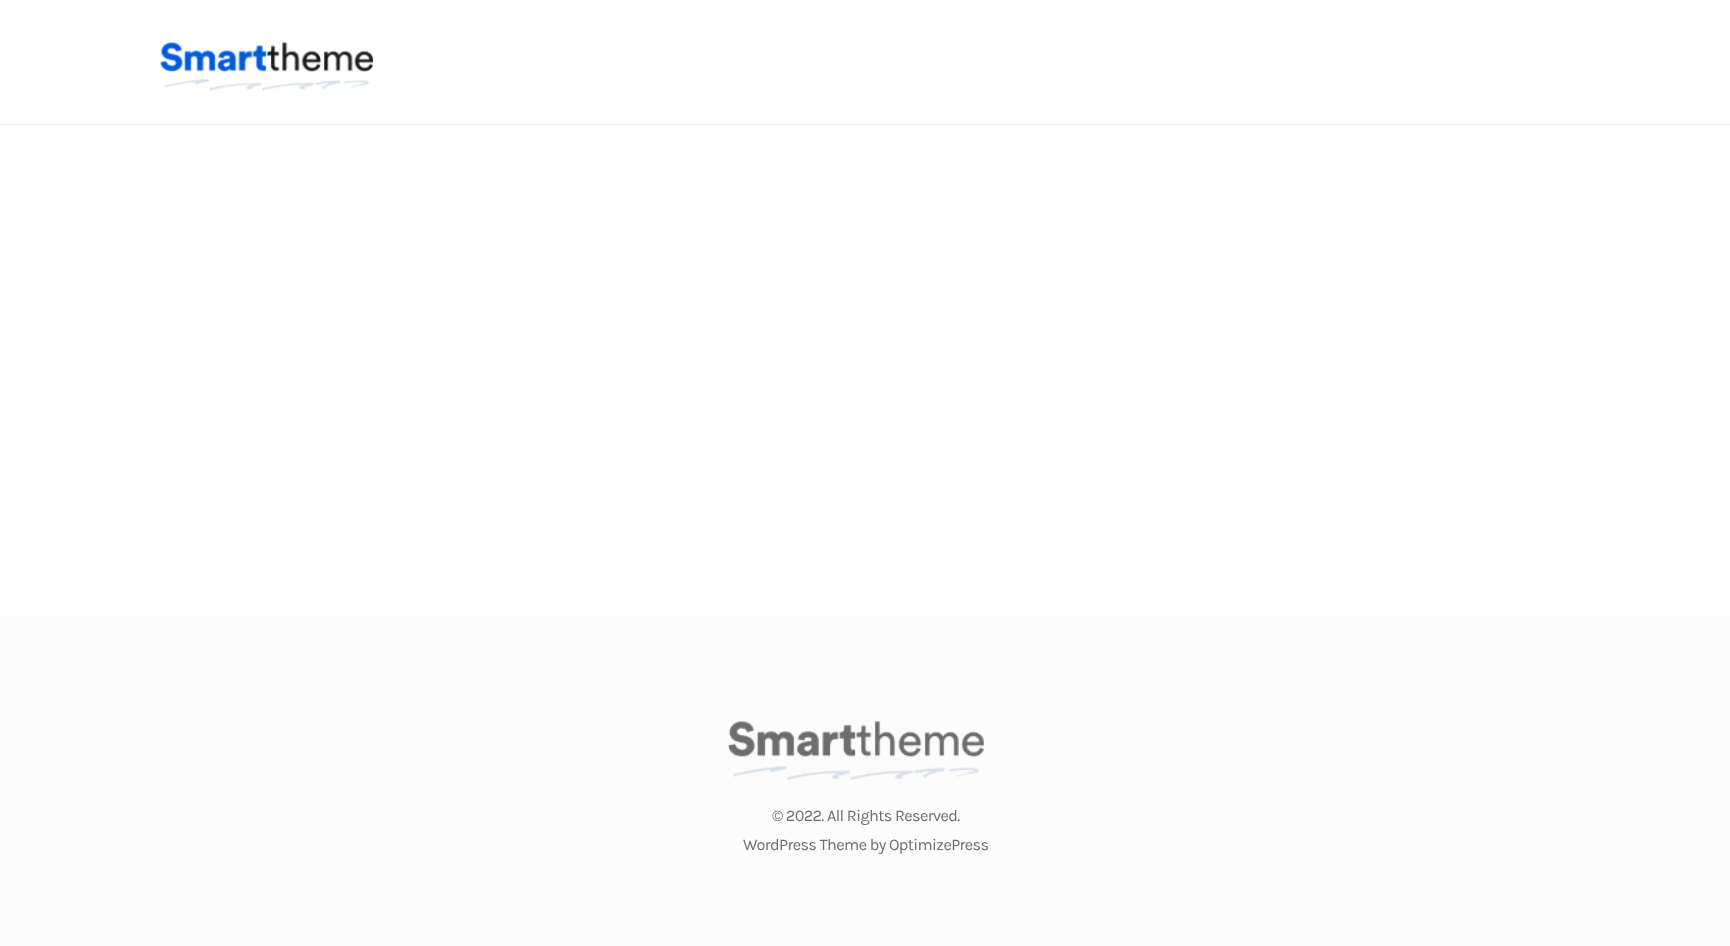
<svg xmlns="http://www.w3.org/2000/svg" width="1730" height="946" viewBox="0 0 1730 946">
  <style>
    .t1 { font: 16.25px Karla; letter-spacing: -0.6px; fill: #6d6d6d; }
  </style>
  <rect width="100%" height="100%" fill="#fff"/>
  <rect x="0" y="124" width="1730" height="1" fill="#f0f0f0"/>
  <image x="160" y="42" width="214" height="49" href="images/1.png"/>
  <rect x="0" y="615" width="1730" height="331" fill="#fcfcfc"/>
  <image x="727" y="721" width="258" height="59" href="images/2.png"/>
  <text x="772" y="821" class="t1">© 2022. All Rights Reserved.</text>
  <text x="743" y="850" class="t1">WordPress Theme by OptimizePress</text>
</svg>
